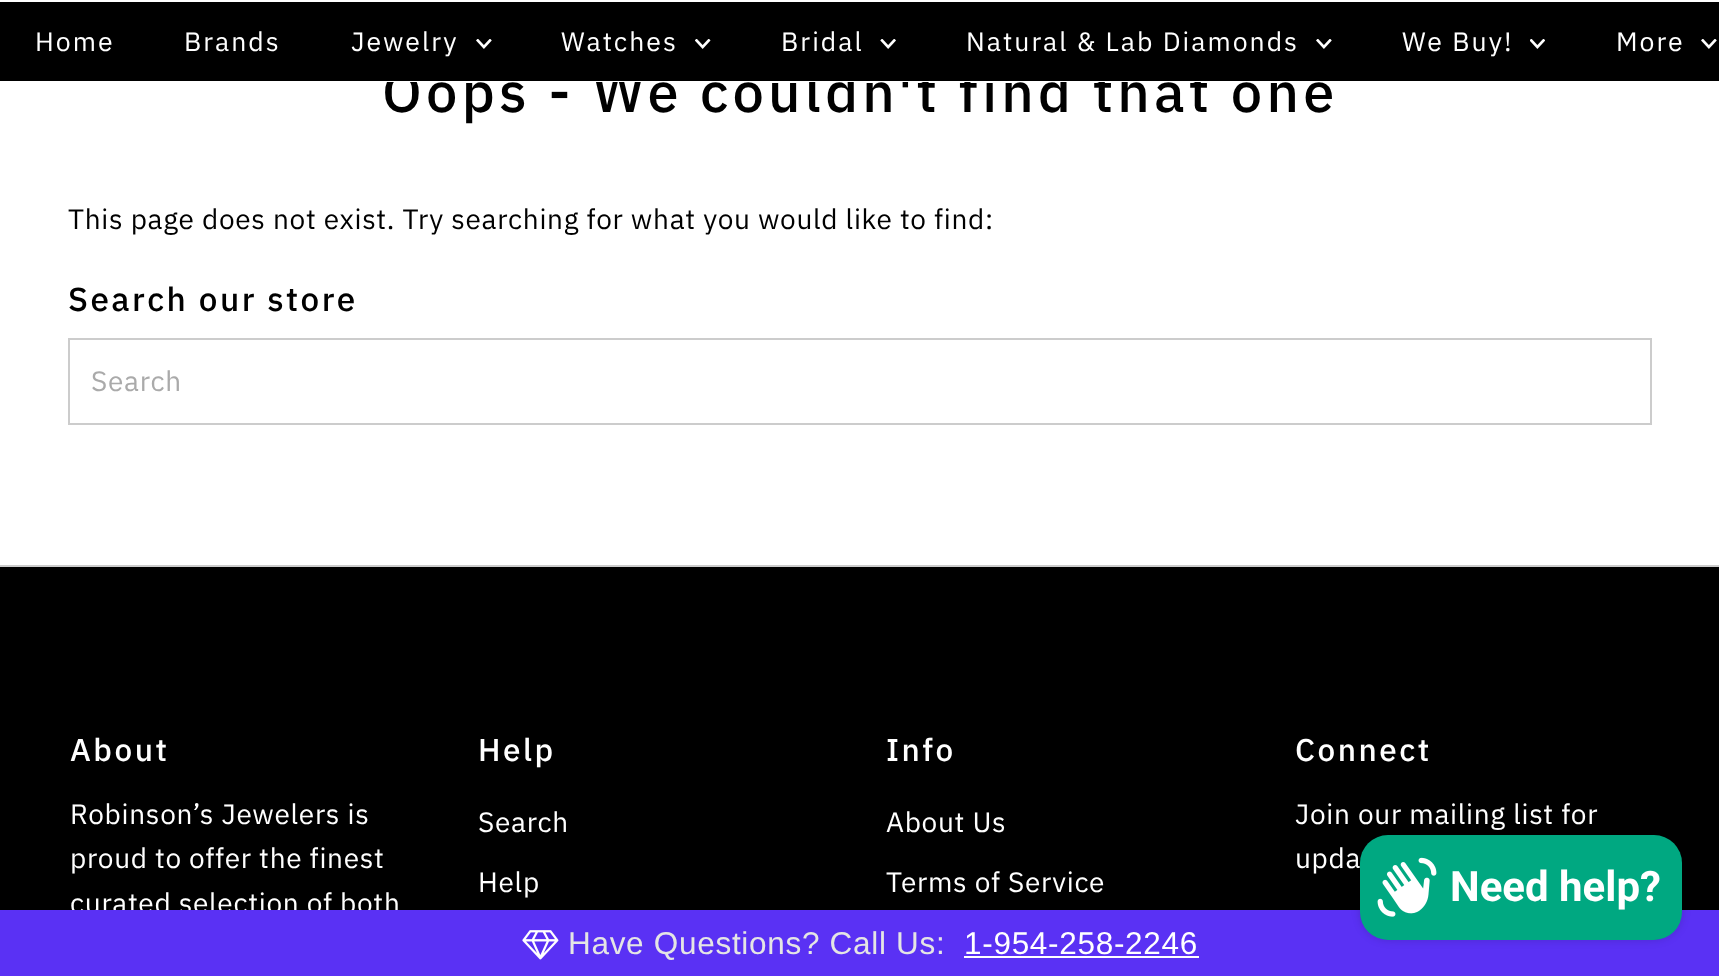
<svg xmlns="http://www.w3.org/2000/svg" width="1719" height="976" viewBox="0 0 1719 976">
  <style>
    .t1 { font: 500 56px IBM Plex Sans; letter-spacing: 4.2px; fill: #000; }
    .t2 { font: 26.6px IBM Plex Sans; letter-spacing: 2px; fill: #fff; }
    .t3 { font: 28px IBM Plex Sans; letter-spacing: 0.7px; fill: #000; }
    .t4 { font: 500 33.25px IBM Plex Sans; letter-spacing: 2.5px; fill: #000; }
    .t5 { font: 28px IBM Plex Sans; letter-spacing: 0.7px; fill: #aaa; }
    .t6 { font: 500 31.5px IBM Plex Sans; letter-spacing: 2.5px; fill: #fff; }
    .t7 { font: 28px IBM Plex Sans; letter-spacing: 0.7px; fill: #fff; }
    .t8 { font: bold 42px Roboto; fill: #fff; }
    .t9 { font: 31.5px Liberation Sans; letter-spacing: 0.7px; fill: #e5e5e5; }
    .t10 { font: 31.5px Liberation Sans; letter-spacing: 0.7px; fill: #fff; }
  </style>
  <rect width="100%" height="100%" fill="#fff"/>
  <text x="382" y="112" class="t1">Oops - We couldn't find that one</text>
  <rect x="386" y="70" width="815" height="12" fill="#fff"/>
  <rect x="0" y="2" width="1719" height="79" fill="#000"/>
  <text x="35" y="51" class="t2">Home</text>
  <text x="184" y="51" class="t2">Brands</text>
  <text x="351" y="51" class="t2">Jewelry</text>
  <image x="476" y="39" width="16" height="10" href="images/1.png"/>
  <text x="561" y="51" class="t2">Watches</text>
  <image x="695" y="39" width="16" height="10" href="images/2.png"/>
  <text x="781" y="51" class="t2">Bridal</text>
  <image x="880" y="39" width="16" height="10" href="images/3.png"/>
  <text x="966" y="51" class="t2">Natural &amp; Lab Diamonds</text>
  <image x="1316" y="39" width="16" height="10" href="images/1.png"/>
  <text x="1402" y="51" class="t2">We Buy!</text>
  <image x="1530" y="39" width="15" height="10" href="images/4.png"/>
  <text x="1616" y="51" class="t2">More</text>
  <image x="1701" y="39" width="16" height="10" href="images/1.png"/>
  <text x="68" y="229" class="t3">This page does not exist. Try searching for what you would like to find:</text>
  <text x="68" y="311" class="t4">Search our store</text>
  <rect x="69" y="339" width="1582" height="85" fill="none" stroke="#ccc" stroke-width="2"/>
  <text x="91" y="391" class="t5">Search</text>
  <rect x="0" y="567" width="1719" height="343" fill="#000"/>
  <rect x="0" y="565" width="1719" height="2" fill="#ccc"/>
  <text x="70" y="761" class="t6">About</text>
  <text x="70" y="824" class="t7">Robinson’s Jewelers is</text>
  <text x="70" y="868" class="t7">proud to offer the finest</text>
  <text x="70" y="913" class="t7">curated selection of both</text>
  <text x="478" y="761" class="t6">Help</text>
  <text x="478" y="832" class="t7">Search</text>
  <text x="478" y="892" class="t7">Help</text>
  <text x="886" y="761" class="t6">Info</text>
  <text x="886" y="832" class="t7">About Us</text>
  <text x="886" y="892" class="t7">Terms of Service</text>
  <text x="1295" y="761" class="t6">Connect</text>
  <text x="1295" y="824" class="t7">Join our mailing list for</text>
  <text x="1295" y="868" class="t7">upda</text>
  <rect x="0" y="910" width="1719" height="66" fill="#5a31f4"/>
  <rect x="1360" y="835" width="322" height="105" rx="28" fill="#00000026" filter="blur(4.5px)"/>
  <rect x="1360" y="835" width="322" height="105" rx="28" fill="#00a881"/>
  <image x="1377" y="857" width="60" height="60" href="images/5.png"/>
  <text x="1450" y="901" class="t8">Need help?</text>
  <image x="522" y="930" width="37" height="30" href="images/6.png"/>
  <text x="568" y="954" class="t9">Have Questions? Call Us:</text>
  <text x="964" y="954" class="t10">1-954-258-2246</text>
  <rect x="964" y="956" width="235" height="2" fill="#fff"/>
</svg>
